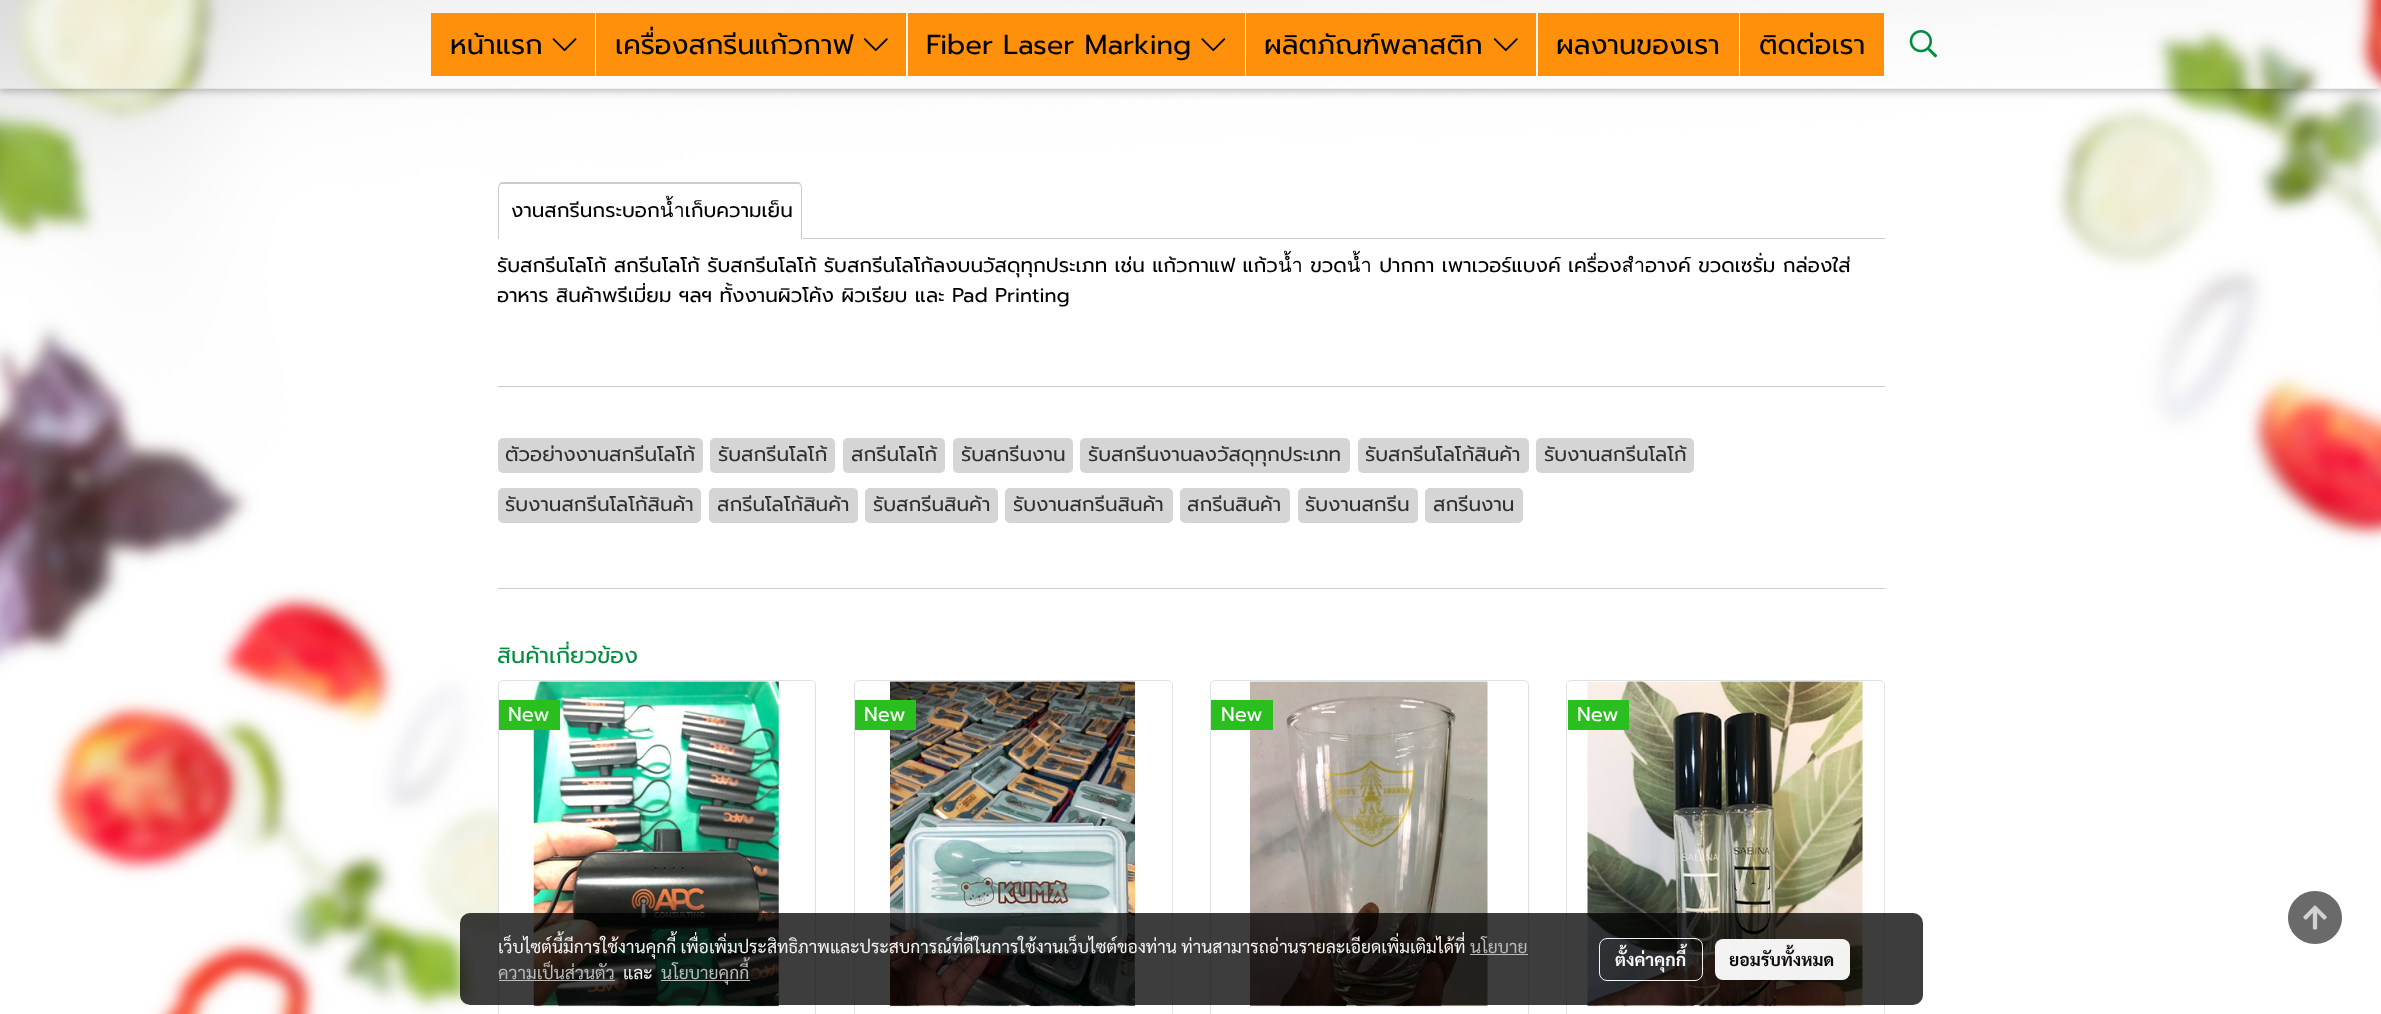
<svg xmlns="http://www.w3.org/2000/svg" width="2381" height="1014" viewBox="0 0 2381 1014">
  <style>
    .t1 { font: 27.5px Prompt; fill: #020101; }
    .t2 { font: 20px Prompt; fill: #020101; }
    .t3 { font: 20px Prompt; fill: #303030; }
    .t4 { font: 22.5px Prompt; fill: #008d3f; }
    .t5 { font: 20px Prompt; fill: #fff; }
    .t6 { font: 17.5px Sarabun; fill: #f4f4f4; }
    .t7 { font: 17.5px Sarabun; fill: #bbb; }
    .t8 { font: bold 17.5px Sarabun; fill: #f4f4f4; }
    .t9 { font: bold 17.5px Sarabun; fill: #0c0c0c; }
  </style>
  <rect width="100%" height="100%" fill="#fff"/>
  <image x="0" y="88" width="2381" height="926" href="images/1.png"/>
  <rect x="0" y="3" width="2381" height="88" fill="#0000001f" filter="blur(6px)"/>
  <rect x="0" y="3" width="2381" height="88" fill="#00000029" filter="blur(3px)"/>
  <image x="0" y="0" width="2381" height="89" href="images/2.png"/>
  <rect x="431" y="13" width="164" height="63" fill="#ff900b"/>
  <text x="450" y="54" class="t1">หน้าแรก</text>
  <image x="552" y="38" width="25" height="14" href="images/3.png"/>
  <rect x="596" y="13" width="310" height="63" fill="#ff900b"/>
  <text x="615" y="54" class="t1">เครื่องสกรีนแก้วกาฟ</text>
  <image x="863" y="38" width="25" height="14" href="images/4.png"/>
  <rect x="908" y="13" width="337" height="63" fill="#ff900b"/>
  <text x="926" y="54" class="t1">Fiber Laser Marking</text>
  <image x="1201" y="38" width="25" height="14" href="images/5.png"/>
  <rect x="1246" y="13" width="290" height="63" fill="#ff900b"/>
  <text x="1264" y="54" class="t1">ผลิตภัณฑ์พลาสติก</text>
  <image x="1493" y="38" width="25" height="14" href="images/4.png"/>
  <rect x="1538" y="13" width="201" height="63" fill="#ff900b"/>
  <text x="1556" y="54" class="t1">ผลงานของเรา</text>
  <rect x="1740" y="13" width="144" height="63" fill="#ff900b"/>
  <text x="1759" y="54" class="t1">ติดต่อเรา</text>
  <image x="1909" y="30" width="29" height="28" href="images/6.png"/>
  <path d="M502 182H798C800 182 802 185 802 188V239H498V188C498 185 500 182 502 182ZM502 184H798C800 184 801 185 801 188V239H499V188C499 185 500 184 502 184Z" fill="#ccc" fill-rule="evenodd"/>
  <text x="511" y="217" class="t2">งานสกรีนกระบอกน้ำเก็บความเย็น</text>
  <rect x="803" y="238" width="1082" height="1" fill="#ccc"/>
  <text x="497" y="272" class="t2">รับสกรีนโลโก้ สกรีนโลโก้ รับสกรีนโลโก้ รับสกรีนโลโก้ลงบนวัสดุทุกประเภท เช่น แก้วกาแฟ แก้วน้ำ ขวดน้ำ ปากกา เพาเวอร์แบงค์ เครื่องสำอางค์ ขวดเซรั่ม กล่องใส่</text>
  <text x="497" y="302" class="t2">อาหาร สินค้าพรีเมี่ยม ฯลฯ ทั้งงานผิวโค้ง ผิวเรียบ และ Pad Printing</text>
  <rect x="498" y="386" width="1387" height="1" fill="#ccc"/>
  <rect x="498" y="438" width="205" height="35" rx="5" fill="#d5d5d5"/>
  <text x="505" y="461" class="t3">ตัวอย่างงานสกรีนโลโก้</text>
  <rect x="710" y="438" width="125" height="35" rx="5" fill="#d5d5d5"/>
  <text x="718" y="461" class="t3">รับสกรีนโลโก้</text>
  <rect x="843" y="438" width="102" height="35" rx="5" fill="#d5d5d5"/>
  <text x="851" y="461" class="t3">สกรีนโลโก้</text>
  <rect x="953" y="438" width="120" height="35" rx="5" fill="#d5d5d5"/>
  <text x="961" y="461" class="t3">รับสกรีนงาน</text>
  <rect x="1080" y="438" width="270" height="35" rx="5" fill="#d5d5d5"/>
  <text x="1088" y="461" class="t3">รับสกรีนงานลงวัสดุทุกประเภท</text>
  <rect x="1358" y="438" width="171" height="35" rx="5" fill="#d5d5d5"/>
  <text x="1365" y="461" class="t3">รับสกรีนโลโก้สินค้า</text>
  <rect x="1536" y="438" width="158" height="35" rx="5" fill="#d5d5d5"/>
  <text x="1544" y="461" class="t3">รับงานสกรีนโลโก้</text>
  <rect x="498" y="488" width="203" height="35" rx="5" fill="#d5d5d5"/>
  <text x="505" y="511" class="t3">รับงานสกรีนโลโก้สินค้า</text>
  <rect x="709" y="488" width="149" height="35" rx="5" fill="#d5d5d5"/>
  <text x="717" y="511" class="t3">สกรีนโลโก้สินค้า</text>
  <rect x="865" y="488" width="133" height="35" rx="5" fill="#d5d5d5"/>
  <text x="873" y="511" class="t3">รับสกรีนสินค้า</text>
  <rect x="1005" y="488" width="168" height="35" rx="5" fill="#d5d5d5"/>
  <text x="1013" y="511" class="t3">รับงานสกรีนสินค้า</text>
  <rect x="1180" y="488" width="110" height="35" rx="5" fill="#d5d5d5"/>
  <text x="1187" y="511" class="t3">สกรีนสินค้า</text>
  <rect x="1298" y="488" width="120" height="35" rx="5" fill="#d5d5d5"/>
  <text x="1305" y="511" class="t3">รับงานสกรีน</text>
  <rect x="1425" y="488" width="98" height="35" rx="5" fill="#d5d5d5"/>
  <text x="1433" y="511" class="t3">สกรีนงาน</text>
  <rect x="498" y="588" width="1387" height="1" fill="#ccc"/>
  <text x="497" y="663" class="t4">สินค้าเกี่ยวข้อง</text>
  <rect x="498.5" y="680.5" width="317" height="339" rx="4.5" fill="#fff" stroke="#dee2e6"/>
  <rect x="499" y="681" width="316" height="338" rx="5" fill="#fff"/>
  <image x="533" y="681" width="246" height="326" href="images/7.png"/>
  <rect x="499" y="700" width="61" height="30" fill="#2bbe1f"/>
  <text x="508" y="721" class="t5">New</text>
  <rect x="854.5" y="680.5" width="318" height="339" rx="4.5" fill="none" stroke="#dee2e6"/>
  <rect x="855" y="681" width="316" height="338" rx="5" fill="#fff"/>
  <image x="890" y="681" width="245" height="326" href="images/8.png"/>
  <rect x="855" y="700" width="61" height="30" fill="#2bbe1f"/>
  <text x="864" y="721" class="t5">New</text>
  <rect x="1210.5" y="680.5" width="318" height="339" rx="4.5" fill="none" stroke="#dee2e6"/>
  <rect x="1211" y="681" width="317" height="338" rx="5" fill="#fff"/>
  <image x="1250" y="681" width="238" height="326" href="images/9.png"/>
  <rect x="1211" y="700" width="62" height="30" fill="#2bbe1f"/>
  <text x="1221" y="721" class="t5">New</text>
  <rect x="1566.5" y="680.5" width="318" height="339" rx="4.5" fill="none" stroke="#dee2e6"/>
  <rect x="1568" y="681" width="316" height="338" rx="5" fill="#fff"/>
  <image x="1587" y="681" width="276" height="326" href="images/10.png"/>
  <rect x="1568" y="700" width="61" height="30" fill="#2bbe1f"/>
  <text x="1577" y="721" class="t5">New</text>
  <path d="M2315 891C2300 891 2288 903 2288 918C2288 932 2300 944 2315 944C2330 944 2342 932 2342 918C2342 903 2330 891 2315 891Z" fill="#6b6a6a"/>
  <image x="2303" y="905" width="24" height="25" href="images/11.png"/>
  <rect x="460" y="913" width="1463" height="92" rx="10" fill="#000000c2"/>
  <text x="498" y="953" class="t6">เว็บไซต์นี้มีการใช้งานคุกกี้ เพื่อเพิ่มประสิทธิภาพและประสบการณ์ที่ดีในการใช้งานเว็บไซต์ของท่าน ท่านสามารถอ่านรายละเอียดเพิ่มเติมได้ที่</text>
  <text x="1470" y="953" class="t7">นโยบาย</text>
  <rect x="1470" y="954" width="58" height="1" fill="#c2c2c2f2"/>
  <text x="498" y="979" class="t7">ความเป็นส่วนตัว</text>
  <rect x="499" y="980" width="116" height="1" fill="#c2c2c2f2"/>
  <text x="623" y="979" class="t6">และ</text>
  <rect x="661" y="980" width="89" height="1" fill="#c2c2c2f2"/>
  <text x="661" y="979" class="t7">นโยบายคุกกี้</text>
  <rect x="1599.5" y="938.5" width="103" height="42" rx="7.5" fill="none" stroke="#fffffff2"/>
  <text x="1615" y="966" class="t8">ตั้งค่าคุกกี้</text>
  <rect x="1715" y="939" width="135" height="41" rx="8" fill="#fffffff2"/>
  <text x="1729" y="966" class="t9">ยอมรับทั้งหมด</text>
</svg>
